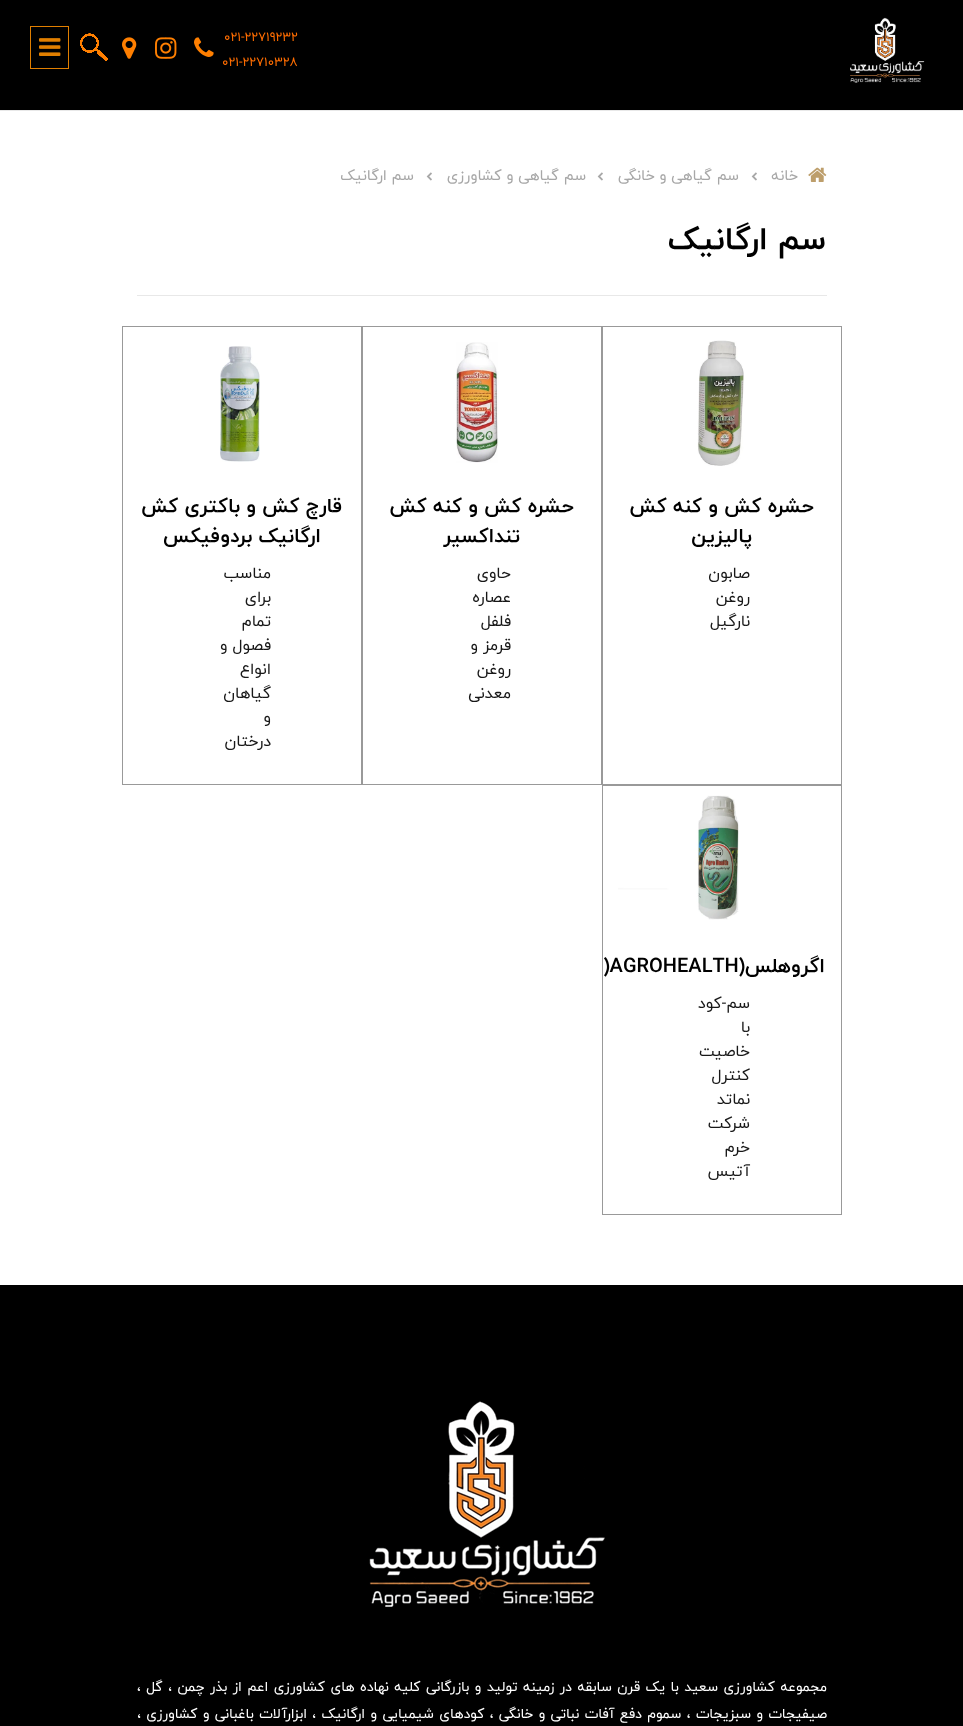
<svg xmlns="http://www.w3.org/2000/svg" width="963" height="1726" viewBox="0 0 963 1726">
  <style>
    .t1 { font: 13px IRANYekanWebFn; fill: #ff6d00; }
    .t2 { font: 15px IRANYekanWebFn; direction: rtl; fill: #a7a7a7; }
    .t3 { font: bold 32px IRANYekanWebFn; direction: rtl; fill: #000; }
    .t4 { font: bold 20px IRANYekanWebFn; direction: rtl; fill: #000; }
    .t5 { font: 16px IRANYekanWebFn; direction: rtl; fill: #181818; }
    .t6 { font: bold 20px IRANYekanWebFn; fill: #000; }
    .t7 { font: 14px IRANYekanWebFn; direction: rtl; fill: #fff; }
  </style>
  <rect width="100%" height="100%" fill="#fff"/>
  <rect x="0" y="110" width="963" height="1" fill="#e8e8e8"/>
  <rect x="0" y="0" width="963" height="110" fill="#000"/>
  <image x="850" y="17" width="75" height="66" href="images/1.png"/>
  <text x="224" y="41" class="t1">021-22719232</text>
  <text x="222" y="66" class="t1">021-22710328</text>
  <image x="194" y="37" width="20" height="20" href="images/2.png"/>
  <image x="155" y="37" width="22" height="22" href="images/3.png"/>
  <image x="122" y="37" width="15" height="22" href="images/4.png"/>
  <image x="80" y="33" width="28" height="28" href="images/5.png"/>
  <rect x="30.5" y="26.5" width="38" height="42" fill="none" stroke="#e17f00"/>
  <image x="39" y="38" width="22" height="18" href="images/6.png"/>
  <image x="808" y="167" width="19" height="15" href="images/7.png"/>
  <text x="798" y="180" class="t2">خانه</text>
  <image x="751" y="172" width="6" height="9" href="images/8.png"/>
  <text x="739" y="180" class="t2">سم گیاهی و خانگی</text>
  <image x="597" y="172" width="6" height="9" href="images/8.png"/>
  <text x="586" y="180" class="t2">سم گیاهی و کشاورزی</text>
  <image x="426" y="172" width="6" height="9" href="images/8.png"/>
  <text x="414" y="180" class="t2">سم ارگانیک</text>
  <text x="826" y="249" class="t3">سم ارگانیک</text>
  <rect x="137" y="295" width="690" height="1" fill="#e8e8e8"/>
  <rect x="602.5" y="326.5" width="239" height="458" fill="none" stroke="#999"/>
  <image x="697" y="340" width="47" height="126" href="images/9.png"/>
  <text x="814" y="512" class="t4">حشره کش و کنه کش</text>
  <text x="752" y="542" class="t4">پالیزین</text>
  <text x="750" y="578" class="t5">صابون</text>
  <text x="750" y="602" class="t5">روغن</text>
  <text x="750" y="626" class="t5">نارگیل</text>
  <rect x="362.5" y="326.5" width="239" height="458" fill="none" stroke="#999"/>
  <image x="456" y="342" width="43" height="121" href="images/10.png"/>
  <text x="574" y="512" class="t4">حشره کش و کنه کش</text>
  <text x="520" y="542" class="t4">تنداکسیر</text>
  <text x="511" y="578" class="t5">حاوی</text>
  <text x="511" y="602" class="t5">عصاره</text>
  <text x="511" y="626" class="t5">فلفل</text>
  <text x="511" y="650" class="t5">قرمز و</text>
  <text x="511" y="674" class="t5">روغن</text>
  <text x="511" y="698" class="t5">معدنی</text>
  <rect x="122.5" y="326.5" width="239" height="458" fill="none" stroke="#999"/>
  <image x="220" y="346" width="40" height="116" href="images/11.png"/>
  <text x="342" y="512" class="t4">قارچ کش و باکتری کش</text>
  <text x="321" y="542" class="t4">ارگانیک بردوفیکس</text>
  <text x="271" y="578" class="t5">مناسب</text>
  <text x="271" y="602" class="t5">برای</text>
  <text x="271" y="626" class="t5">تمام</text>
  <text x="271" y="650" class="t5">فصول و</text>
  <text x="271" y="674" class="t5">انواع</text>
  <text x="271" y="698" class="t5">گیاهان</text>
  <text x="271" y="722" class="t5">و</text>
  <text x="271" y="746" class="t5">درختان</text>
  <rect x="602.5" y="785.5" width="239" height="429" fill="none" stroke="#999"/>
  <image x="618" y="795" width="122" height="125" href="images/12.png"/>
  <text x="825" y="972" class="t4">اگروهلس(</text>
  <text x="603" y="972" class="t6">)AGROHEALTH</text>
  <text x="750" y="1008" class="t5">سم-کود</text>
  <text x="750" y="1032" class="t5">با</text>
  <text x="750" y="1056" class="t5">خاصیت</text>
  <text x="750" y="1080" class="t5">کنترل</text>
  <text x="750" y="1104" class="t5">نماتد</text>
  <text x="750" y="1128" class="t5">شرکت</text>
  <text x="750" y="1152" class="t5">خرم</text>
  <text x="750" y="1176" class="t5">آتیس</text>
  <rect x="0" y="1285" width="963" height="441" fill="#000"/>
  <image x="369" y="1401" width="236" height="207" href="images/13.png"/>
  <text x="827" y="1691" word-spacing="1.1" class="t7">مجموعه کشاورزی سعید با یک قرن سابقه در زمینه تولید و بازرگانی کلیه نهاده های کشاورزی اعم از بذر چمن ، گل ،</text>
  <text x="827" y="1718" word-spacing="1" class="t7">صیفیجات و سبزیجات ، سموم دفع آفات نباتی و خانگی ، کودهای شیمیایی و ارگانیک ، ابزارآلات باغبانی و کشاورزی ،</text>
</svg>
